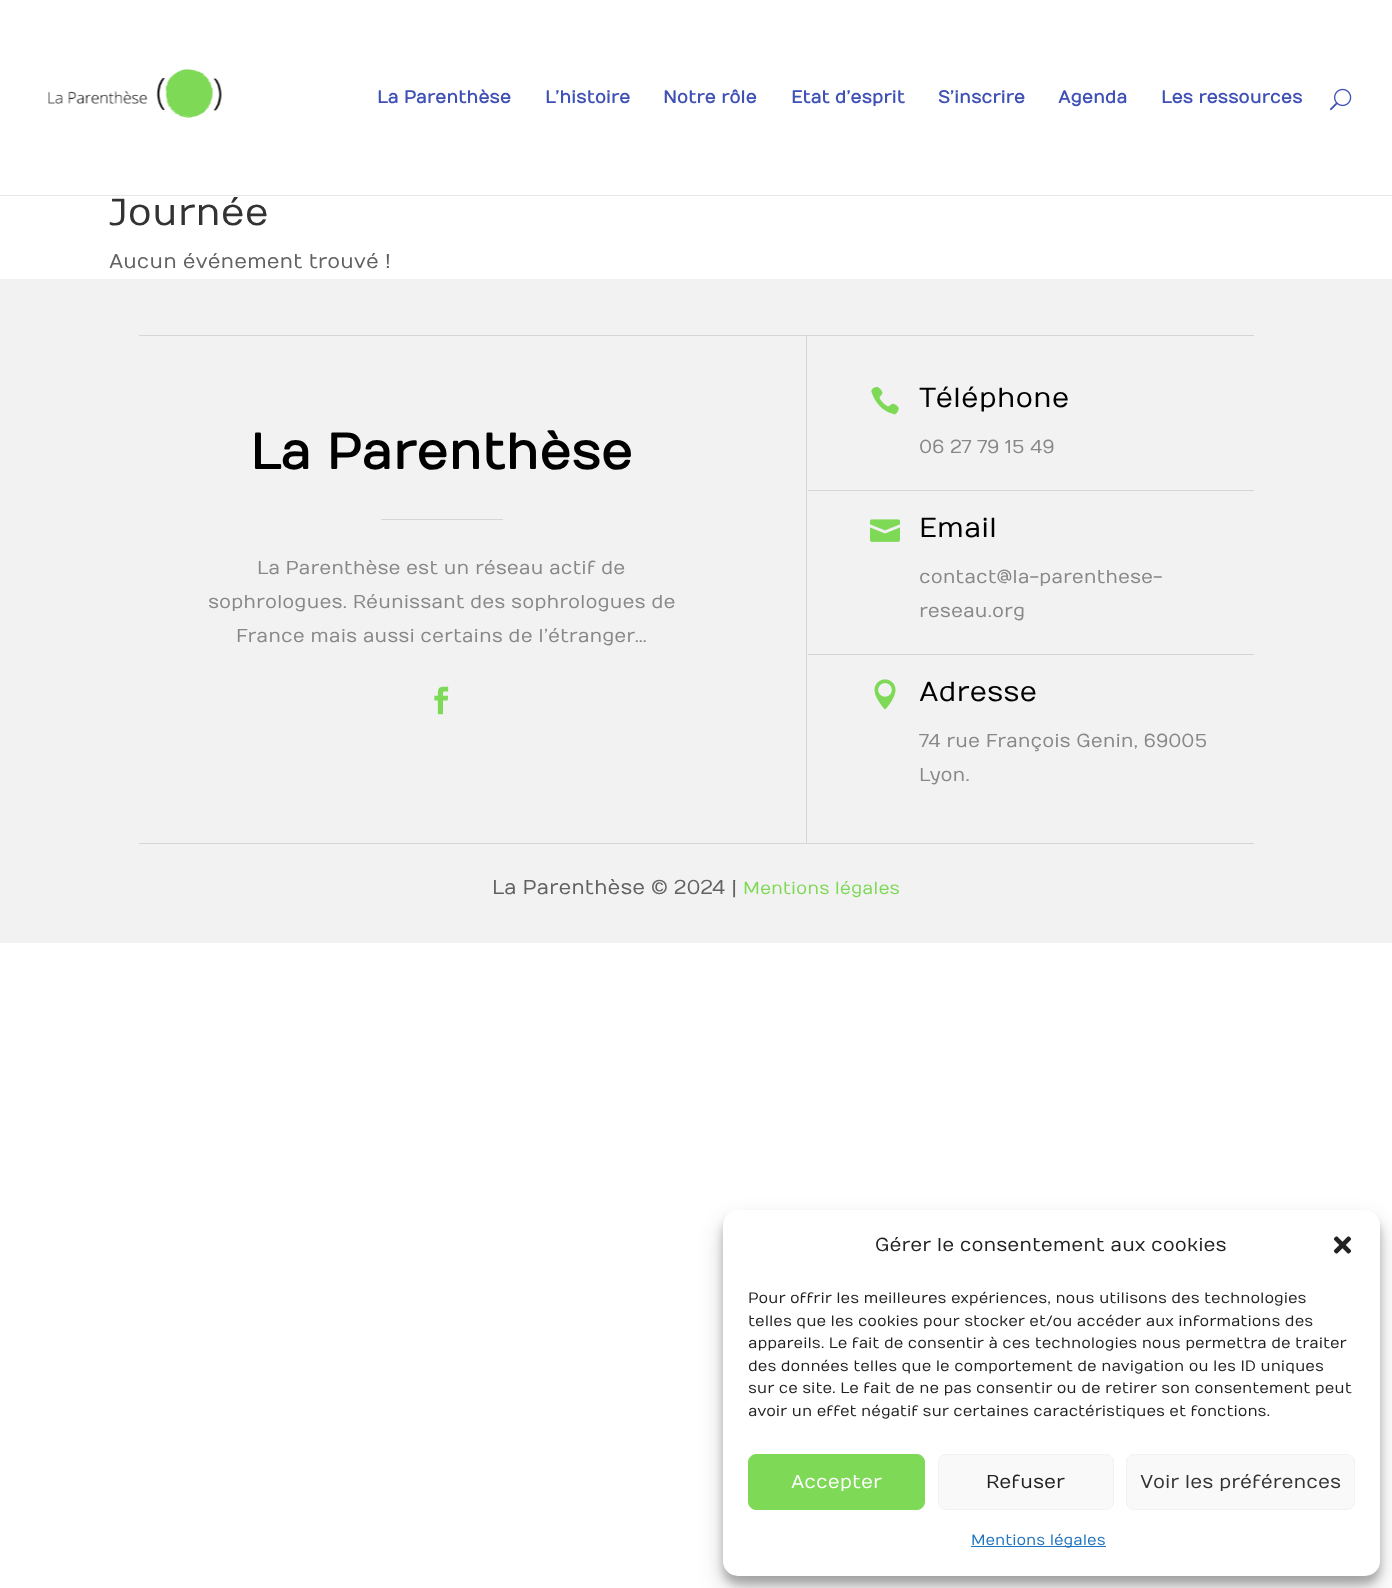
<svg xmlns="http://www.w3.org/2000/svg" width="1392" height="1588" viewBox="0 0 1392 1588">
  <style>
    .t1 { font: bold 17.5px Numans; fill: #3f51b5; }
    .t2 { font: 37.5px Numans; fill: #333; }
    .t3 { font: 20px Numans; fill: #626262; }
    .t4 { font: bold 50px Numans; fill: #000; }
    .t5 { font: 18.75px Numans; fill: #888; }
    .t6 { font: 27.5px Numans; fill: #000; }
    .t7 { font: 17.5px Numans; fill: #7ed957; }
    .t8 { font: 18.75px Numans; fill: #222; }
    .t9 { font: 15px Numans; fill: #222; }
    .t10 { font: 18.75px Numans; fill: #fff; }
    .t11 { font: 18.75px Numans; fill: #333; }
    .t12 { font: 15px Numans; fill: #1e73be; }
  </style>
  <rect width="100%" height="100%" fill="#fff"/>
  <path d="M0 195V196H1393V1H1392V195Z" fill="#e6e6e6"/>
  <image x="48" y="69" width="174" height="49" href="images/1.png"/>
  <text x="377" y="103" class="t1">La Parenthèse</text>
  <text x="545" y="103" class="t1">L’histoire</text>
  <text x="663" y="103" class="t1">Notre rôle</text>
  <text x="791" y="103" class="t1">Etat d’esprit</text>
  <text x="938" y="103" class="t1">S’inscrire</text>
  <text x="1058" y="103" class="t1">Agenda</text>
  <text x="1161" y="103" class="t1">Les ressources</text>
  <image x="1330" y="88" width="22" height="23" href="images/2.png"/>
  <text x="109" y="225" class="t2">Journée</text>
  <text x="109" y="268" class="t3">Aucun événement trouvé !</text>
  <rect x="0" y="279" width="1392" height="664" fill="#f2f2f2"/>
  <rect x="139" y="335" width="1115" height="1" fill="#d6d6d6"/>
  <rect x="139" y="843" width="1115" height="1" fill="#d6d6d6"/>
  <rect x="806" y="336" width="1" height="507" fill="#d6d6d6"/>
  <text x="250" y="469" class="t4">La Parenthèse</text>
  <rect x="381" y="519" width="122" height="1" fill="#d6d6d6"/>
  <text x="257" y="574" class="t5">La Parenthèse est un réseau actif de</text>
  <text x="208" y="608" class="t5">sophrologues. Réunissant des sophrologues de</text>
  <text x="236" y="642" class="t5">France mais aussi certains de l’étranger…</text>
  <image x="434" y="686" width="15" height="29" href="images/3.png"/>
  <rect x="808" y="490" width="446" height="1" fill="#d6d6d6"/>
  <image x="871" y="386" width="28" height="29" href="images/4.png"/>
  <text x="919" y="407" class="t6">Téléphone</text>
  <text x="919" y="453" class="t5">06 27 79 15 49</text>
  <rect x="808" y="654" width="446" height="1" fill="#d6d6d6"/>
  <image x="870" y="519" width="30" height="23" href="images/5.png"/>
  <text x="919" y="537" class="t6">Email</text>
  <text x="919" y="583" class="t5">contact@la-parenthese-</text>
  <text x="919" y="617" class="t5">reseau.org</text>
  <image x="874" y="679" width="22" height="31" href="images/6.png"/>
  <text x="919" y="701" class="t6">Adresse</text>
  <text x="919" y="747" class="t5">74 rue François Genin, 69005</text>
  <text x="919" y="781" class="t5">Lyon.</text>
  <text x="492" y="894" class="t3">La Parenthèse © 2024 |</text>
  <text x="743" y="894" class="t7">Mentions légales</text>
  <rect x="723" y="1218" width="657" height="366" rx="15" fill="#0000003b" filter="blur(4px)"/>
  <rect x="723" y="1223" width="657" height="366" rx="15" fill="#00000030" filter="blur(12.5px)"/>
  <rect x="723" y="1210" width="657" height="366" rx="15" fill="#fff"/>
  <text x="875" y="1251" class="t8">Gérer le consentement aux cookies</text>
  <image x="1333" y="1236" width="19" height="18" href="images/7.png"/>
  <text x="748" y="1303" class="t9">Pour offrir les meilleures expériences, nous utilisons des technologies</text>
  <text x="748" y="1326" class="t9">telles que les cookies pour stocker et/ou accéder aux informations des</text>
  <text x="748" y="1348" class="t9">appareils. Le fait de consentir à ces technologies nous permettra de traiter</text>
  <text x="748" y="1371" class="t9">des données telles que le comportement de navigation ou les ID uniques</text>
  <text x="748" y="1393" class="t9">sur ce site. Le fait de ne pas consentir ou de retirer son consentement peut</text>
  <text x="748" y="1416" class="t9">avoir un effet négatif sur certaines caractéristiques et fonctions.</text>
  <rect x="748.5" y="1454.5" width="176" height="55" rx="7.5" fill="#7ed957" stroke="#7ed957"/>
  <text x="791" y="1488" class="t10">Accepter</text>
  <rect x="938.5" y="1454.5" width="175" height="55" rx="7.5" fill="#f9f9f9" stroke="#f2f2f2"/>
  <text x="986" y="1488" class="t8">Refuser</text>
  <rect x="1126.5" y="1454.5" width="228" height="55" rx="7.5" fill="#f9f9f9" stroke="#f2f2f2"/>
  <text x="1140" y="1488" class="t11">Voir les préférences</text>
  <rect x="971" y="1546" width="135" height="1" fill="#1e73be"/>
  <text x="971" y="1545" class="t12">Mentions légales</text>
</svg>
